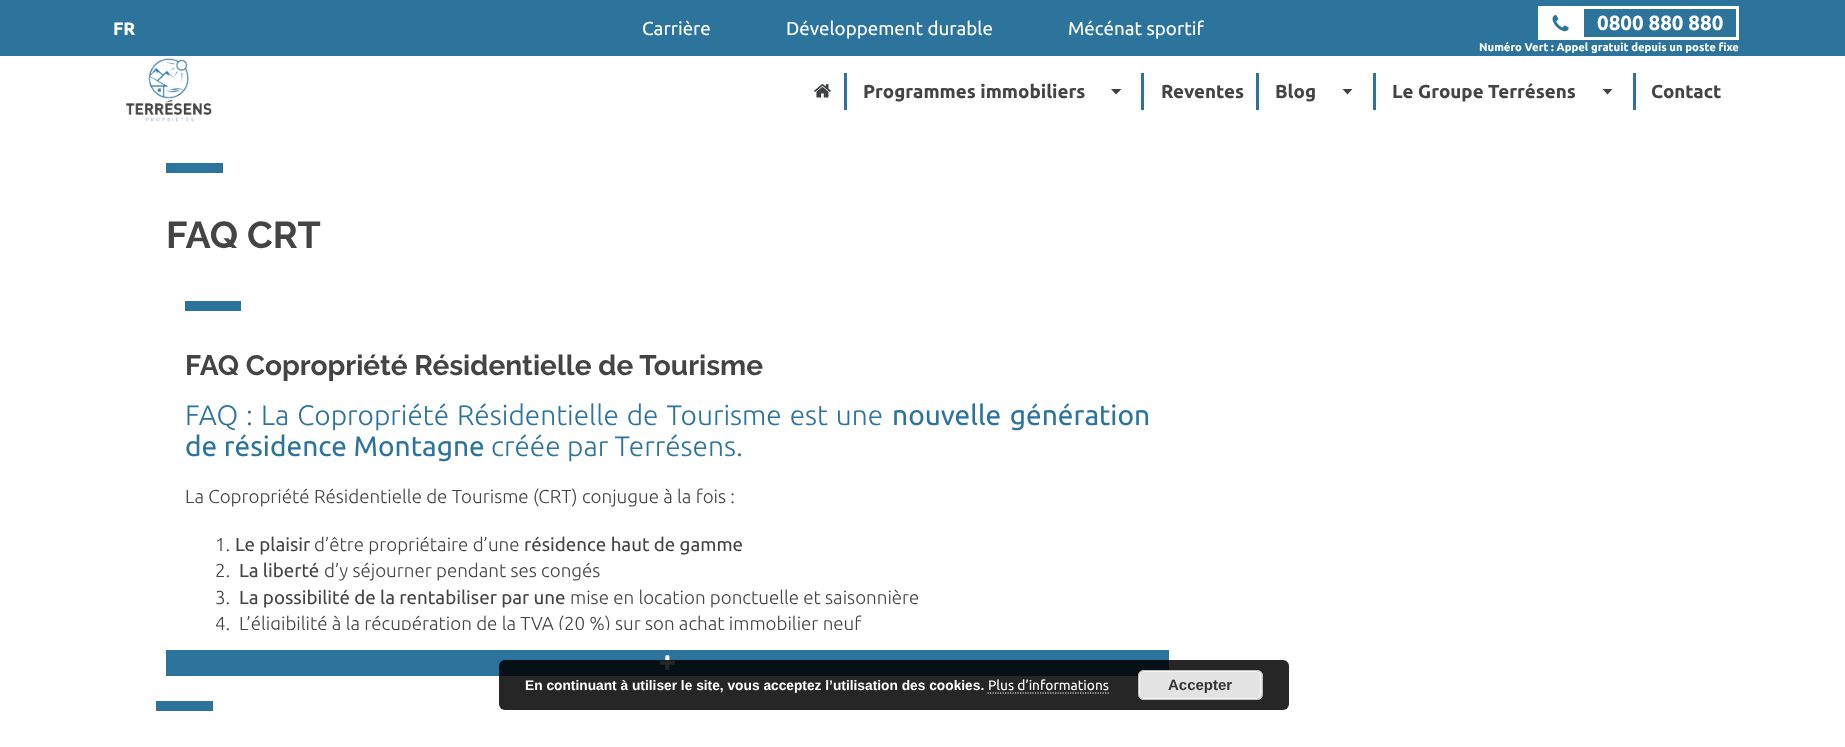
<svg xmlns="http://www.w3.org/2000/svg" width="1845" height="747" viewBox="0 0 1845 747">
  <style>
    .t1 { font: bold 18px Ubuntu; fill: #fff; }
    .t2 { font: 18.75px Ubuntu; fill: #fff; }
    .t3 { font: bold 20.5px Ubuntu; fill: #fff; }
    .t4 { font: bold 11.25px Ubuntu; fill: #fff; }
    .t5 { font: bold 18.75px Ubuntu; fill: #444; }
    .t6 { font: bold 37.5px Raleway; fill: #444; }
    .t7 { font: bold 28.1px Raleway; fill: #444; }
    .t8 { font: 300 28.1px Ubuntu; fill: #2d749c; }
    .t9 { font: 28.1px Ubuntu; fill: #2d749c; }
    .t10 { font: 300 18.75px Ubuntu; fill: #444; }
    .t11 { font: 18.75px Ubuntu; fill: #444; }
    .t12 { font: bold 13.75px Liberation Sans; fill: #fff; }
    .t13 { font: 13.75px Ubuntu; fill: #fff; }
    .t14 { font: bold 15px Liberation Sans; fill: #333; }
  </style>
  <defs>
    <clipPath id="clip1"><rect x="185" y="301" width="965" height="329"/></clipPath>
  </defs>
  <rect width="100%" height="100%" fill="#fff"/>
  <rect x="0" y="0" width="1845" height="56" fill="#2d749c"/>
  <text x="113" y="35" class="t1">FR</text>
  <text x="642" y="35" class="t2">Carrière</text>
  <text x="786" y="35" class="t2">Développement durable</text>
  <text x="1068" y="35" class="t2">Mécénat sportif</text>
  <rect x="1582.5" y="7.5" width="155" height="31" fill="none" stroke="#fff" stroke-width="3"/>
  <rect x="1538" y="6" width="43" height="34" fill="#fff"/>
  <image x="1552" y="15" width="17" height="17" href="images/1.png"/>
  <text x="1597" y="30" class="t3">0800 880 880</text>
  <text x="1479" y="51" class="t4">Numéro Vert : Appel gratuit depuis un poste fixe</text>
  <image x="126" y="58" width="86" height="64" href="images/2.png"/>
  <rect x="844" y="73" width="3" height="37" fill="#2d749c"/>
  <image x="814" y="84" width="17" height="14" href="images/3.png"/>
  <rect x="1141" y="73" width="3" height="37" fill="#2d749c"/>
  <text x="863" y="98" class="t5">Programmes immobiliers</text>
  <path d="M1111 89H1121.5L1116 94.5Z" fill="#404142"/>
  <rect x="1256" y="73" width="3" height="37" fill="#2d749c"/>
  <text x="1161" y="98" class="t5">Reventes</text>
  <rect x="1373" y="73" width="3" height="37" fill="#2d749c"/>
  <text x="1275" y="98" class="t5">Blog</text>
  <path d="M1342.5 89H1352.5L1347.5 94.5Z" fill="#404142"/>
  <rect x="1633" y="73" width="3" height="37" fill="#2d749c"/>
  <text x="1392" y="98" class="t5">Le Groupe Terrésens</text>
  <path d="M1602.5 89H1612.5L1607.5 94.5Z" fill="#404142"/>
  <text x="1651" y="98" class="t5">Contact</text>
  <rect x="166" y="163" width="57" height="10" fill="#2d749c"/>
  <text x="166" y="248" class="t6">FAQ CRT</text>
  <rect x="185" y="301" width="56" height="10" fill="#2d749c"/>
  <text x="185" y="375" class="t7">FAQ Copropriété Résidentielle de Tourisme</text>
  <text x="185" y="425" word-spacing="1.5" class="t8">FAQ : La Copropriété Résidentielle de Tourisme est une</text>
  <text x="892" y="425" word-spacing="2" class="t9">nouvelle génération</text>
  <text x="185" y="456" class="t9">de résidence Montagne</text>
  <text x="491" y="456" class="t8">créée par Terrésens.</text>
  <text x="185" y="503" class="t10">La Copropriété Résidentielle de Tourisme (CRT) conjugue à la fois :</text>
  <text x="215" y="551" class="t10">1.</text>
  <text x="235" y="551" class="t11">Le plaisir</text>
  <text x="314" y="551" class="t10">d’être propriétaire d’une</text>
  <text x="524" y="551" class="t11">résidence haut de gamme</text>
  <text x="215" y="577" class="t10">2.</text>
  <text x="239" y="577" class="t11">La liberté</text>
  <text x="324" y="577" class="t10">d’y séjourner pendant ses congés</text>
  <text x="215" y="604" class="t10">3.</text>
  <text x="239" y="604" class="t11">La possibilité de la rentabiliser par une</text>
  <text x="570" y="604" class="t10">mise en location ponctuelle et saisonnière</text>
  <text x="215" y="630" class="t10">4.</text>
  <g clip-path="url(#clip1)">
    <text x="239" y="630" class="t10">L’éligibilité à la récupération de la TVA (20 %) sur son achat immobilier neuf</text>
  </g>
  <rect x="166" y="650" width="1003" height="26" fill="#2d749c"/>
  <image x="660" y="655" width="15" height="15" href="images/4.png"/>
  <rect x="156" y="701" width="57" height="10" fill="#2d749c"/>
  <rect x="499" y="660" width="790" height="50" rx="6" fill="#000000d9"/>
  <text x="525" y="690" class="t12">En continuant à utiliser le site, vous acceptez l’utilisation des cookies.</text>
  <text x="988" y="690" class="t13">Plus d’informations</text>
  <path d="M987.5 693H1109" fill="none" stroke="#fff" stroke-width="1.2" stroke-dasharray="1.25 1.25"/>
  <rect x="1138" y="670" width="125" height="30" rx="6" fill="#e3e3e3"/>
  <rect x="1139.5" y="671.5" width="121" height="27" rx="4.5" fill="none" stroke="#f6f6f6"/>
  <rect x="1138.5" y="670.5" width="124" height="29" rx="5.5" fill="none" stroke="#bbb"/>
  <text x="1168" y="690" class="t14">Accepter</text>
</svg>
